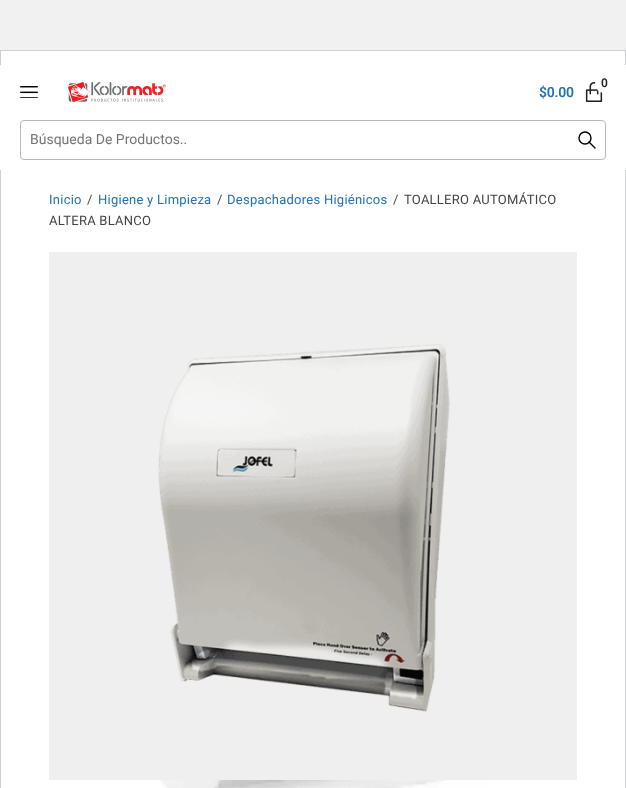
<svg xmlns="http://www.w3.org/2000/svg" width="626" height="788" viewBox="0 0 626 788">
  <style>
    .t1 { font: 600 12px Roboto; fill: #222; }
    .t2 { font: 600 14px Roboto; letter-spacing: -0.25px; fill: #2271b1; }
    .t3 { font: 14px Roboto; fill: #757575; }
    .t4 { font: 13px Roboto; letter-spacing: 0.25px; fill: #2271b1; }
    .t5 { font: 13px Roboto; letter-spacing: 0.25px; fill: #444; }
  </style>
  <rect width="100%" height="100%" fill="#f1f1f1"/>
  <rect x="0.5" y="50.5" width="625" height="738" fill="#fff" stroke="#ccd0d4"/>
  <rect x="0" y="65" width="626" height="105" fill="#fff"/>
  <image x="20" y="86" width="18" height="12" href="images/1.png"/>
  <image x="68" y="82" width="98" height="20" href="images/2.png"/>
  <image x="585" y="82" width="18" height="20" href="images/3.png"/>
  <circle cx="604" cy="84" r="9" fill="#fff"/>
  <text x="601" y="87" class="t1">0</text>
  <text x="539" y="97" class="t2">$0.00</text>
  <rect x="20.5" y="120.5" width="585" height="39" rx="3.5" fill="none" stroke="#bbb8b8"/>
  <text x="30" y="144" class="t3">Búsqueda De Productos..</text>
  <circle cx="585" cy="138" r="6" fill="none" stroke="#000" stroke-width="1.4"/>
  <path d="M589 142L595 148" fill="none" stroke="#000" stroke-width="1.4" stroke-linecap="round" stroke-linejoin="round"/>
  <text x="49" y="204" class="t4">Inicio</text>
  <text x="87" y="204" class="t5">/</text>
  <text x="98" y="204" class="t4">Higiene y Limpieza</text>
  <text x="217" y="204" class="t5">/</text>
  <text x="227" y="204" class="t4">Despachadores Higiénicos</text>
  <text x="393" y="204" class="t5">/</text>
  <text x="404" y="204" class="t5">TOALLERO AUTOMÁTICO</text>
  <text x="49" y="225" class="t5">ALTERA BLANCO</text>
  <rect x="49" y="252" width="528" height="528" fill="#efefef"/>
  <image x="158" y="344" width="292" height="368" href="images/4.png"/>
  <image x="49" y="780" width="528" height="8" href="images/5.png"/>
</svg>
